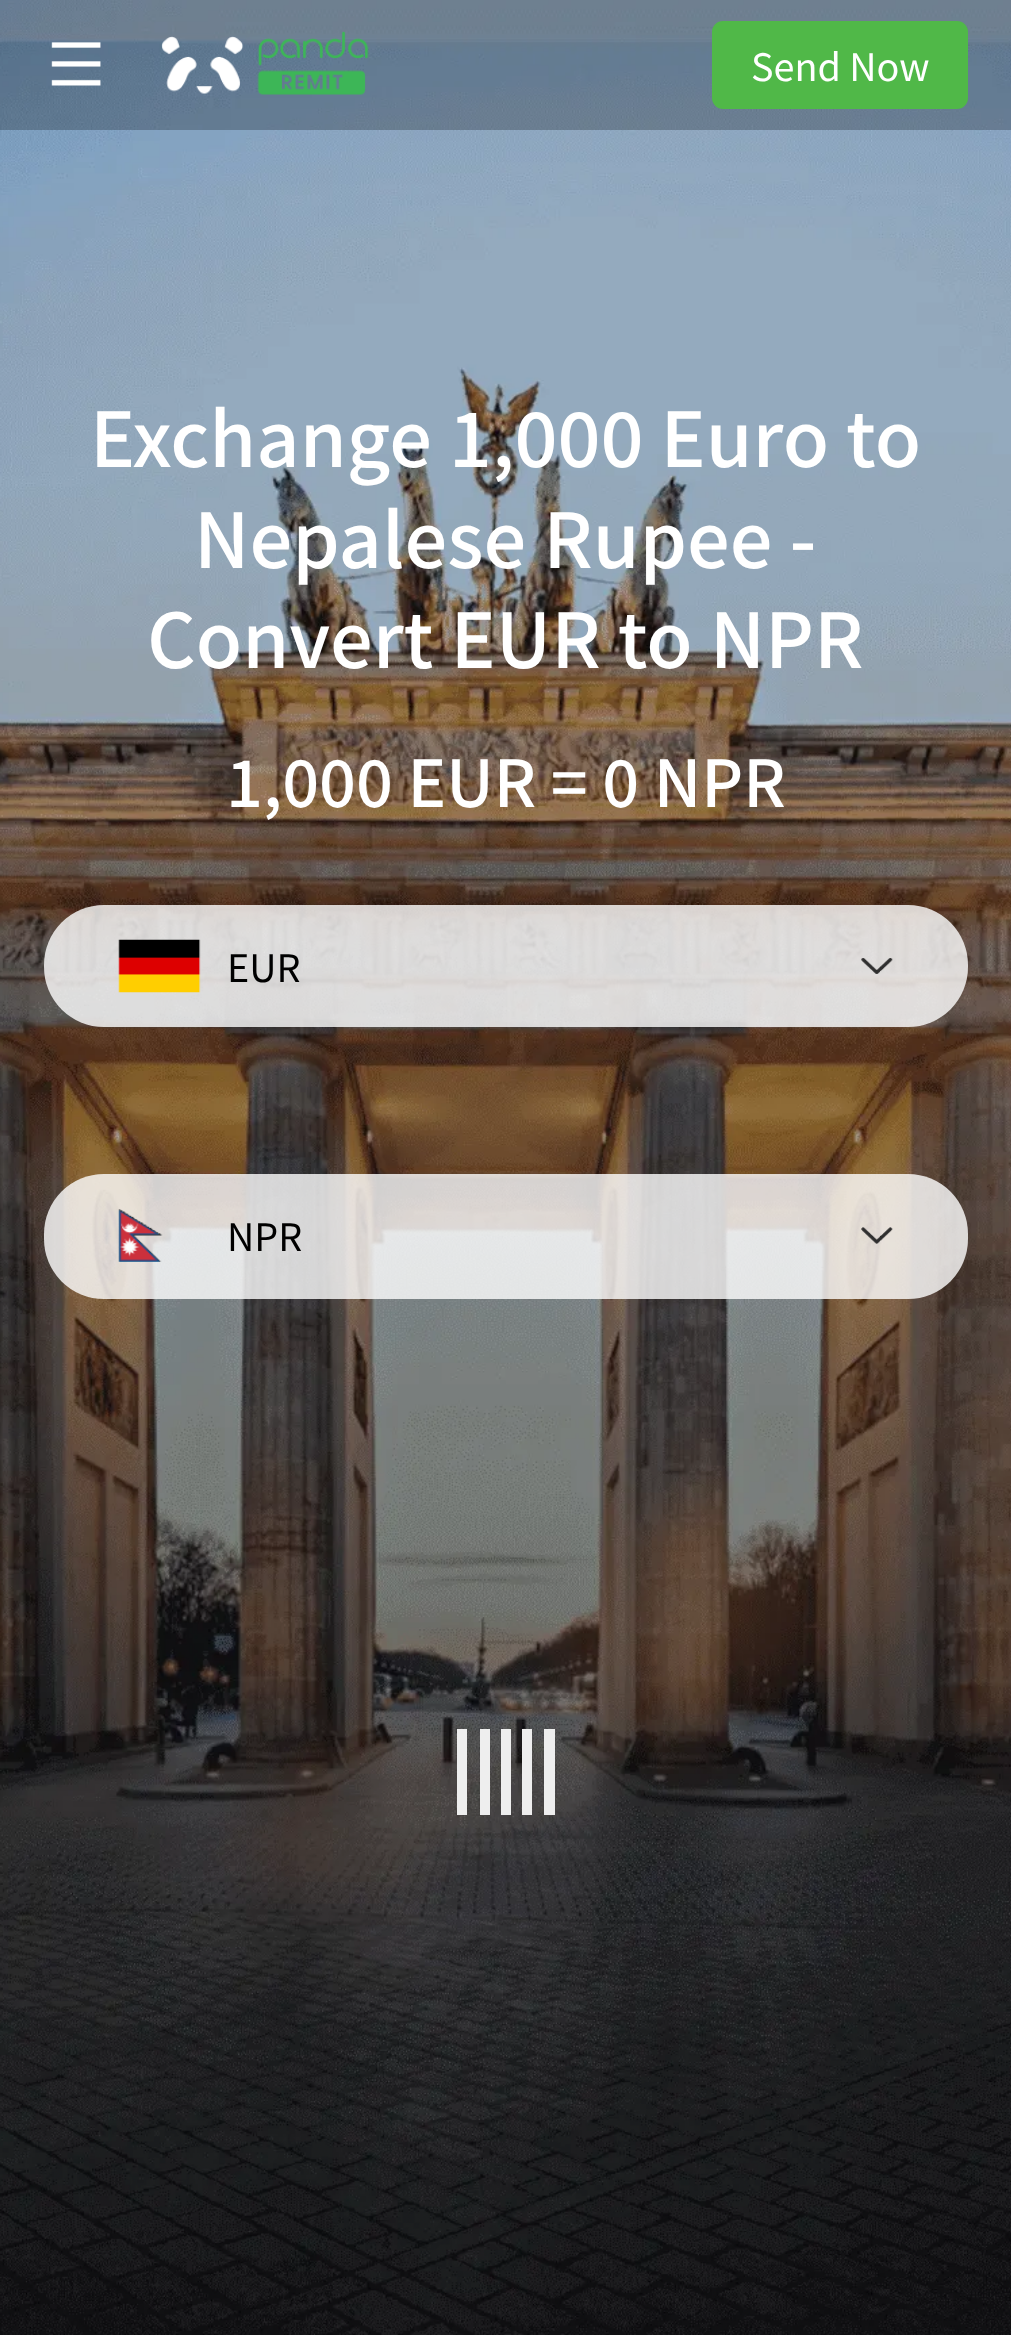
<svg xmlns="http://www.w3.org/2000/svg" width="1011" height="2335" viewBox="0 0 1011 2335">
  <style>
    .t1 { font: 37.75px Noto Sans CJK SC; fill: #fff; }
    .t2 { font: 500 75.5px Noto Sans CJK SC; fill: #fff; }
    .t3 { font: 500 64.75px Noto Sans CJK SC; fill: #fff; }
    .t4 { font: 37.75px Noto Sans CJK SC; fill: #000; }
  </style>
  <rect width="100%" height="100%" fill="#fff"/>
  <image x="0" y="0" width="1011" height="2335" href="images/1.png"/>
  <rect x="0" y="0" width="1011" height="130" fill="#0000003d"/>
  <image x="51" y="42" width="50" height="44" href="images/2.png"/>
  <image x="161" y="31" width="208" height="64" href="images/3.png"/>
  <rect x="712" y="21" width="256" height="88" rx="11" fill="#50b848"/>
  <text x="751" y="81" class="t1">Send Now</text>
  <text x="90" y="467" class="t2">Exchange 1,000 Euro to</text>
  <text x="194" y="568" class="t2">Nepalese Rupee -</text>
  <text x="147" y="668" class="t2">Convert EUR to NPR</text>
  <text x="226" y="807" class="t3">1,000 EUR = 0 NPR</text>
  <rect x="44" y="905" width="924" height="122" rx="60" fill="#ffffffcc"/>
  <image x="118" y="939" width="83" height="54" href="images/4.png"/>
  <text x="227" y="982" class="t4">EUR</text>
  <image x="861" y="958" width="32" height="16" href="images/5.png"/>
  <rect x="44" y="1174" width="924" height="125" rx="60" fill="#ffffffcc"/>
  <image x="118" y="1209" width="45" height="53" href="images/6.png"/>
  <text x="227" y="1251" class="t4">NPR</text>
  <image x="861" y="1227" width="32" height="17" href="images/7.png"/>
  <rect x="457" y="1729" width="10" height="86" fill="#eee"/>
  <rect x="480" y="1729" width="10" height="86" fill="#eee"/>
  <rect x="501" y="1729" width="10" height="86" fill="#eee"/>
  <rect x="522" y="1729" width="10" height="86" fill="#eee"/>
  <rect x="544" y="1729" width="11" height="86" fill="#eee"/>
</svg>
